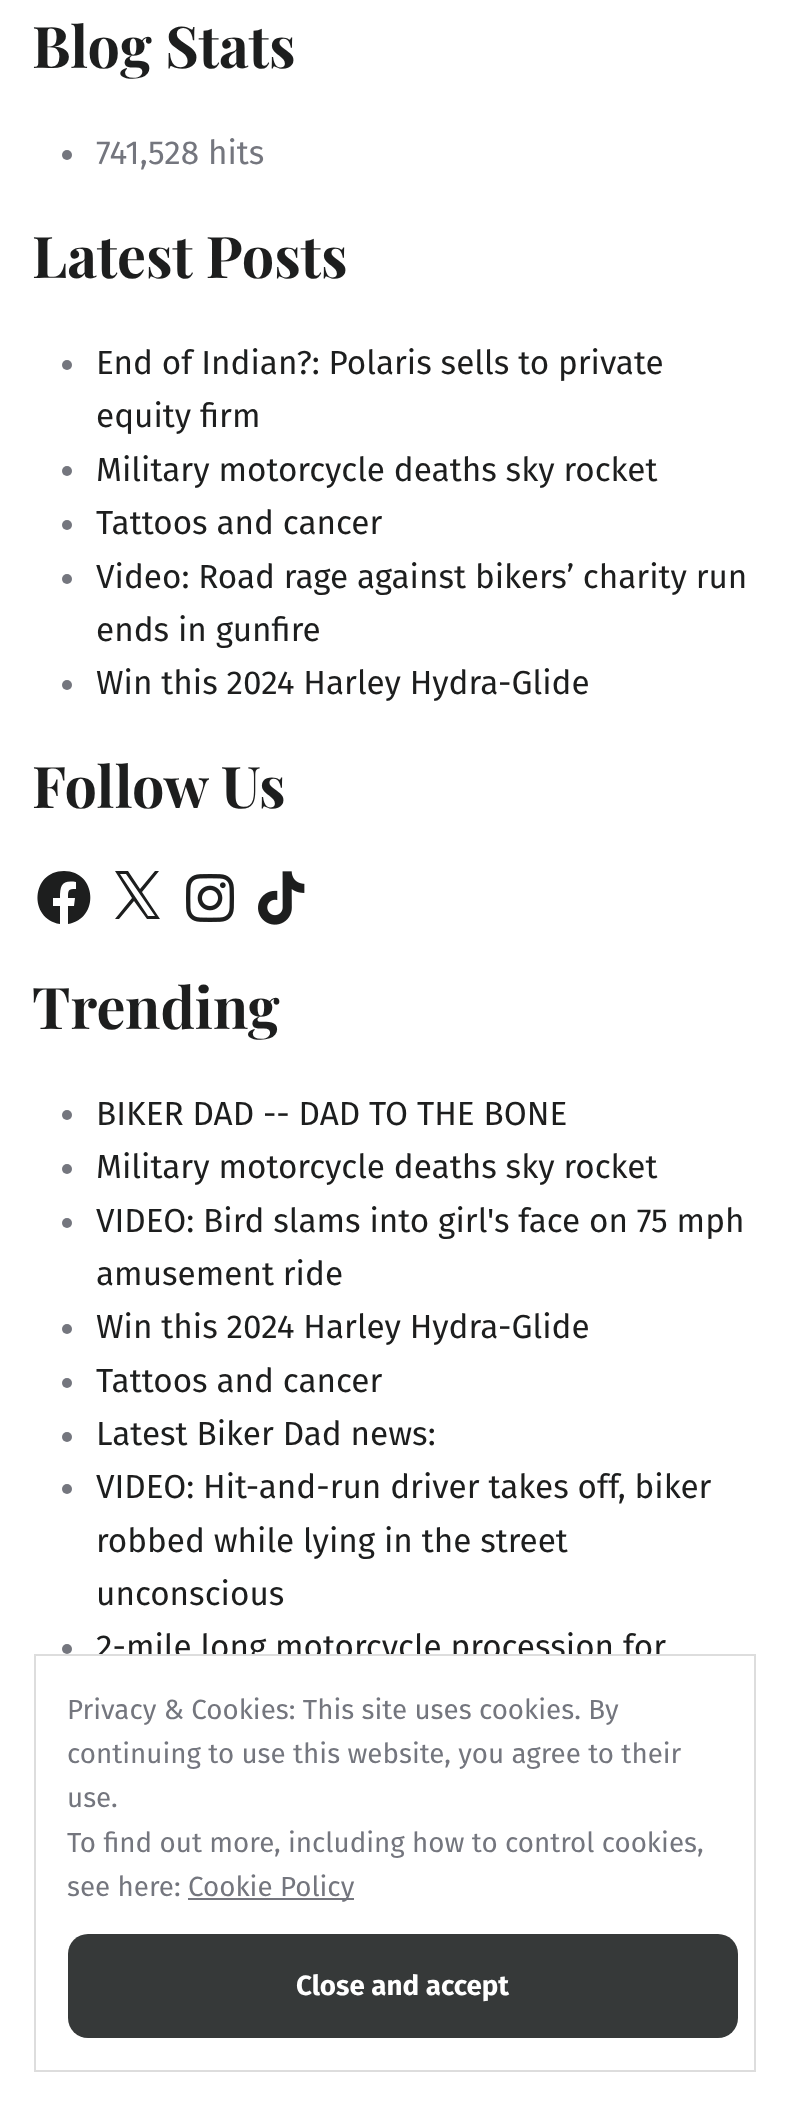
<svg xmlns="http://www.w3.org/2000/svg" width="789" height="2106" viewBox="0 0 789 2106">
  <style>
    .t1 { font: bold 57.5px Playfair Display; fill: #1d1e1e; }
    .t2 { font: 33.3px Fira Sans; fill: #74767e; }
    .t3 { font: 33.3px Fira Sans; fill: #1d1e1e; }
    .t4 { font: 27.75px Fira Sans; fill: #74767e; }
    .t5 { font: bold 27.75px Fira Sans; fill: #fff; }
  </style>
  <rect width="100%" height="100%" fill="#fff"/>
  <text x="32" y="68" class="t1">Blog Stats</text>
  <circle cx="67" cy="155" r="5" fill="#74767e"/>
  <text x="96" y="164" class="t2">741,528 hits</text>
  <text x="32" y="278" class="t1">Latest Posts</text>
  <circle cx="67" cy="365" r="5" fill="#74767e"/>
  <text x="96" y="374" class="t3">End of Indian?: Polaris sells to private</text>
  <text x="96" y="427" class="t3">equity firm</text>
  <circle cx="67" cy="471" r="5" fill="#74767e"/>
  <text x="96" y="481" class="t3">Military motorcycle deaths sky rocket</text>
  <circle cx="67" cy="525" r="5" fill="#74767e"/>
  <text x="96" y="534" class="t3">Tattoos and cancer</text>
  <circle cx="67" cy="579" r="5" fill="#74767e"/>
  <text x="96" y="588" class="t3">Video: Road rage against bikers’ charity run</text>
  <text x="96" y="641" class="t3">ends in gunfire</text>
  <circle cx="67" cy="685" r="5" fill="#74767e"/>
  <text x="96" y="694" class="t3">Win this 2024 Harley Hydra-Glide</text>
  <text x="32" y="808" class="t1">Follow Us</text>
  <path d="M64 871C31 871 28 919 60 924V906H53V898H60C60 885 62 880 76 882V889C68 889 68 890 68 898H75L74 906H68V924C100 919 97 871 64 871Z" fill="#1d1e1e"/>
  <path d="M142 892L159 871H155L140 889L128 871H115L132 898L115 919H119L134 901L147 919H160ZM136 898L120 874H126L155 916H148Z" fill="#1d1e1e"/>
  <image x="186" y="874" width="48" height="48" href="images/1.png"/>
  <image x="258" y="871" width="47" height="54" href="images/2.png"/>
  <text x="32" y="1029" class="t1">Trending</text>
  <circle cx="67" cy="1115" r="5" fill="#74767e"/>
  <text x="96" y="1125" class="t3">BIKER DAD -- DAD TO THE BONE</text>
  <circle cx="67" cy="1169" r="5" fill="#74767e"/>
  <text x="96" y="1178" class="t3">Military motorcycle deaths sky rocket</text>
  <circle cx="67" cy="1223" r="5" fill="#74767e"/>
  <text x="96" y="1232" class="t3">VIDEO: Bird slams into girl's face on 75 mph</text>
  <text x="96" y="1285" class="t3">amusement ride</text>
  <circle cx="67" cy="1329" r="5" fill="#74767e"/>
  <text x="96" y="1338" class="t3">Win this 2024 Harley Hydra-Glide</text>
  <circle cx="67" cy="1383" r="5" fill="#74767e"/>
  <text x="96" y="1392" class="t3">Tattoos and cancer</text>
  <circle cx="67" cy="1437" r="5" fill="#74767e"/>
  <text x="96" y="1445" class="t3">Latest Biker Dad news:</text>
  <circle cx="67" cy="1489" r="5" fill="#74767e"/>
  <text x="96" y="1498" class="t3">VIDEO: Hit-and-run driver takes off, biker</text>
  <text x="96" y="1552" class="t3">robbed while lying in the street</text>
  <text x="96" y="1605" class="t3">unconscious</text>
  <circle cx="67" cy="1649" r="5" fill="#74767e"/>
  <text x="96" y="1658" class="t3">2-mile long motorcycle procession for</text>
  <rect x="97" y="1656" width="564" height="10" fill="#fff"/>
  <rect x="35" y="1655" width="720" height="416" fill="none" stroke="#ddd" stroke-width="2"/>
  <text x="67" y="1719" class="t4">Privacy &amp; Cookies: This site uses cookies. By</text>
  <text x="67" y="1763" class="t4">continuing to use this website, you agree to their</text>
  <text x="67" y="1807" class="t4">use.</text>
  <text x="67" y="1852" class="t4">To find out more, including how to control cookies,</text>
  <text x="67" y="1896" class="t4">see here:</text>
  <rect x="188" y="1898" width="166" height="2" fill="#74767e"/>
  <text x="188" y="1896" class="t4">Cookie Policy</text>
  <rect x="68" y="1934" width="670" height="104" rx="20" fill="#363939"/>
  <text x="296" y="1995" class="t5">Close and accept</text>
</svg>
